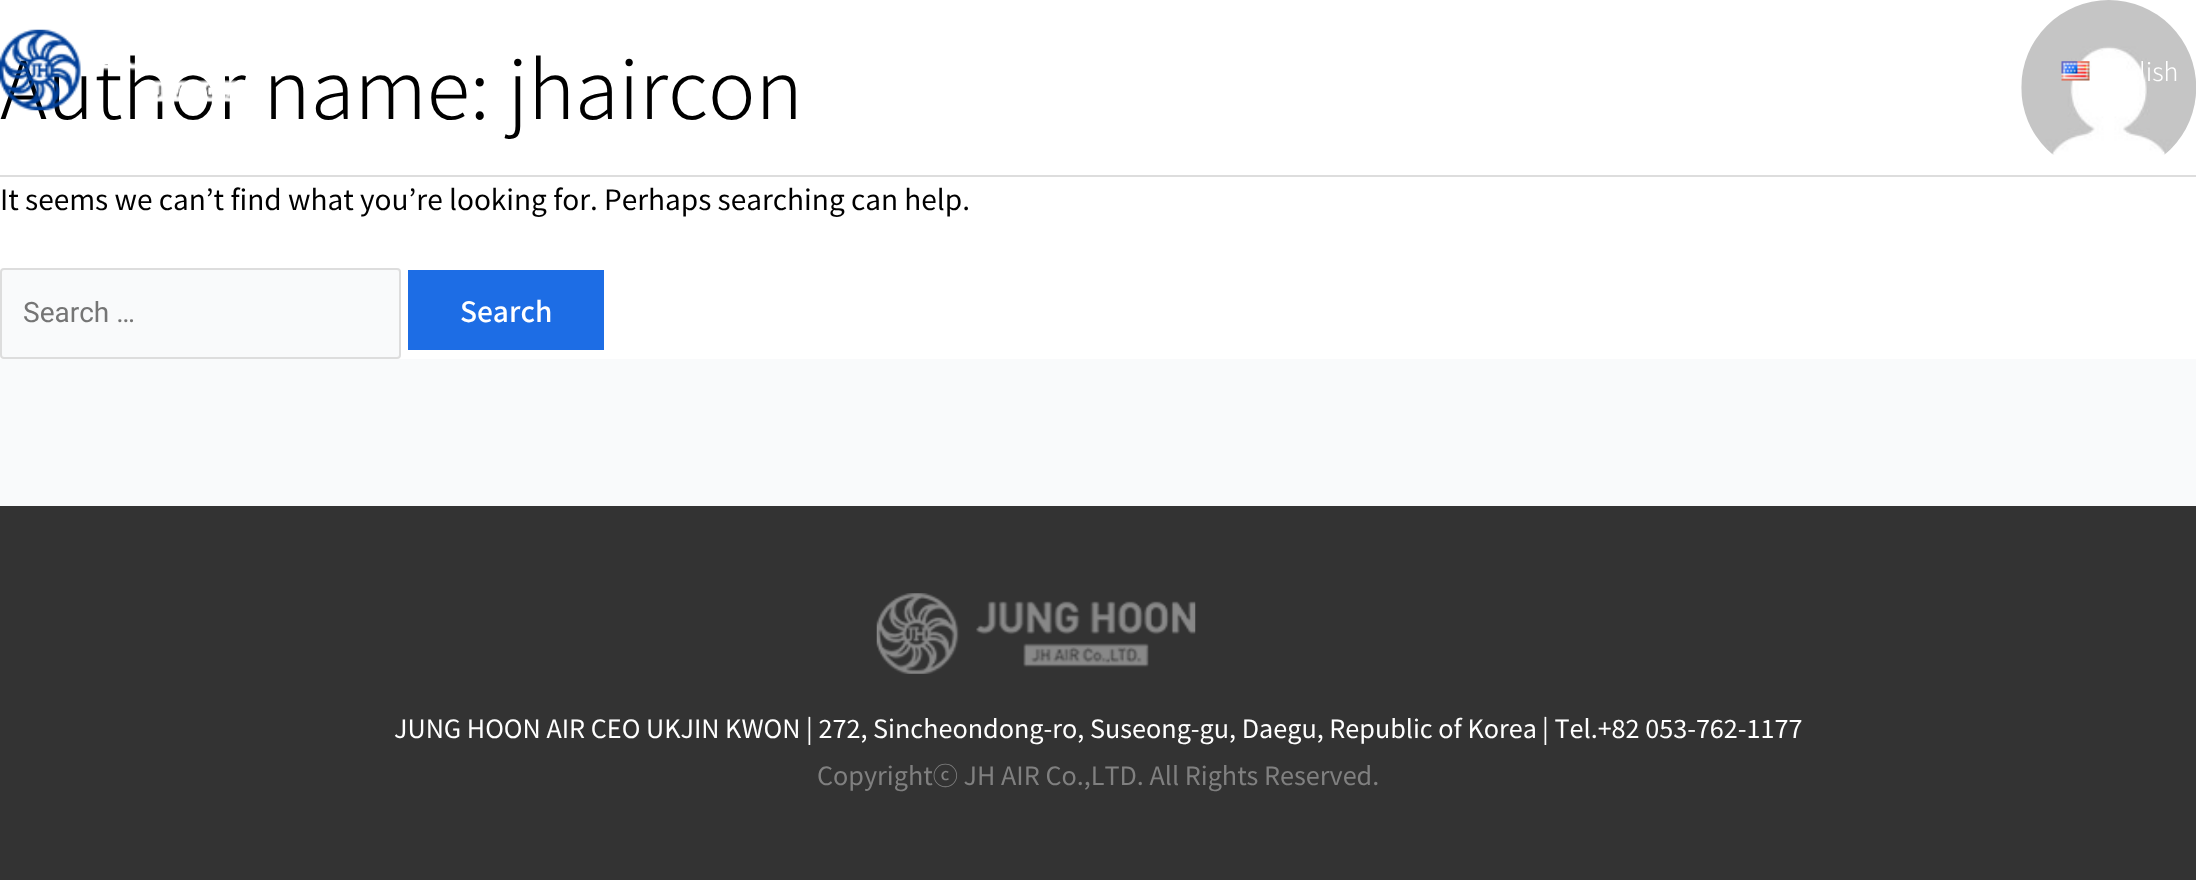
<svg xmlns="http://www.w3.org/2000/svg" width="2196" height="880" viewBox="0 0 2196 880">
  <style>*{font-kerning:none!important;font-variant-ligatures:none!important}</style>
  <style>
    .t1 { font: 300 80px Noto Sans KR; fill: #000; }
    .t2 { font: 28px Noto Sans KR; fill: #000; }
    .t3 { font: 28px Roboto; fill: #757575; }
    .t4 { font: 500 28px Noto Sans KR; fill: #fff; }
    .t5 { font: 300 25.2px Noto Sans KR; fill: #fff; }
    .t6 { font: 25.2px Noto Sans KR; fill: #fff; }
    .t7 { font: 25.2px Noto Sans KR; fill: #808080; }
  </style>
  <rect width="100%" height="100%" fill="#f9fafb"/>
  <rect x="0" y="0" width="2196" height="175" fill="#fff"/>
  <rect x="0" y="175" width="2196" height="2" fill="#ddd"/>
  <text x="0" y="119" class="t1">Author name: jhaircon</text>
  <image x="2021" y="0" width="175" height="155" href="images/1.png"/>
  <rect x="0" y="177" width="2196" height="182" fill="#fff"/>
  <text x="0" y="210" class="t2">It seems we can’t find what you’re looking for.</text>
  <text x="604" y="210" class="t2">Perhaps searching can help.</text>
  <rect x="1" y="269" width="399" height="89" rx="3" fill="#f9fafb" stroke="#ddd" stroke-width="2"/>
  <text x="23" y="322" class="t3">Search …</text>
  <rect x="408" y="270" width="196" height="80" fill="#1d6de5"/>
  <text x="460" y="322" class="t4">Search</text>
  <image x="0" y="29" width="245" height="82" href="images/2.png"/>
  <image x="2061" y="61" width="29" height="20" href="images/3.png"/>
  <text x="2139" y="81" class="t5">lish</text>
  <rect x="0" y="506" width="2196" height="374" fill="#333"/>
  <image x="876" y="593" width="320" height="81" href="images/4.png"/>
  <text x="394" y="738" class="t6">JUNG HOON AIR CEO UKJIN KWON | 272, Sincheondong-ro, Suseong-gu, Daegu, Republic of Korea</text>
  <text x="1542" y="738" class="t6">| Tel.+82 053-762-1177</text>
  <text x="817" y="785" class="t7">Copyrightⓒ JH AIR Co.,LTD. All Rights Reserved.</text>
</svg>
